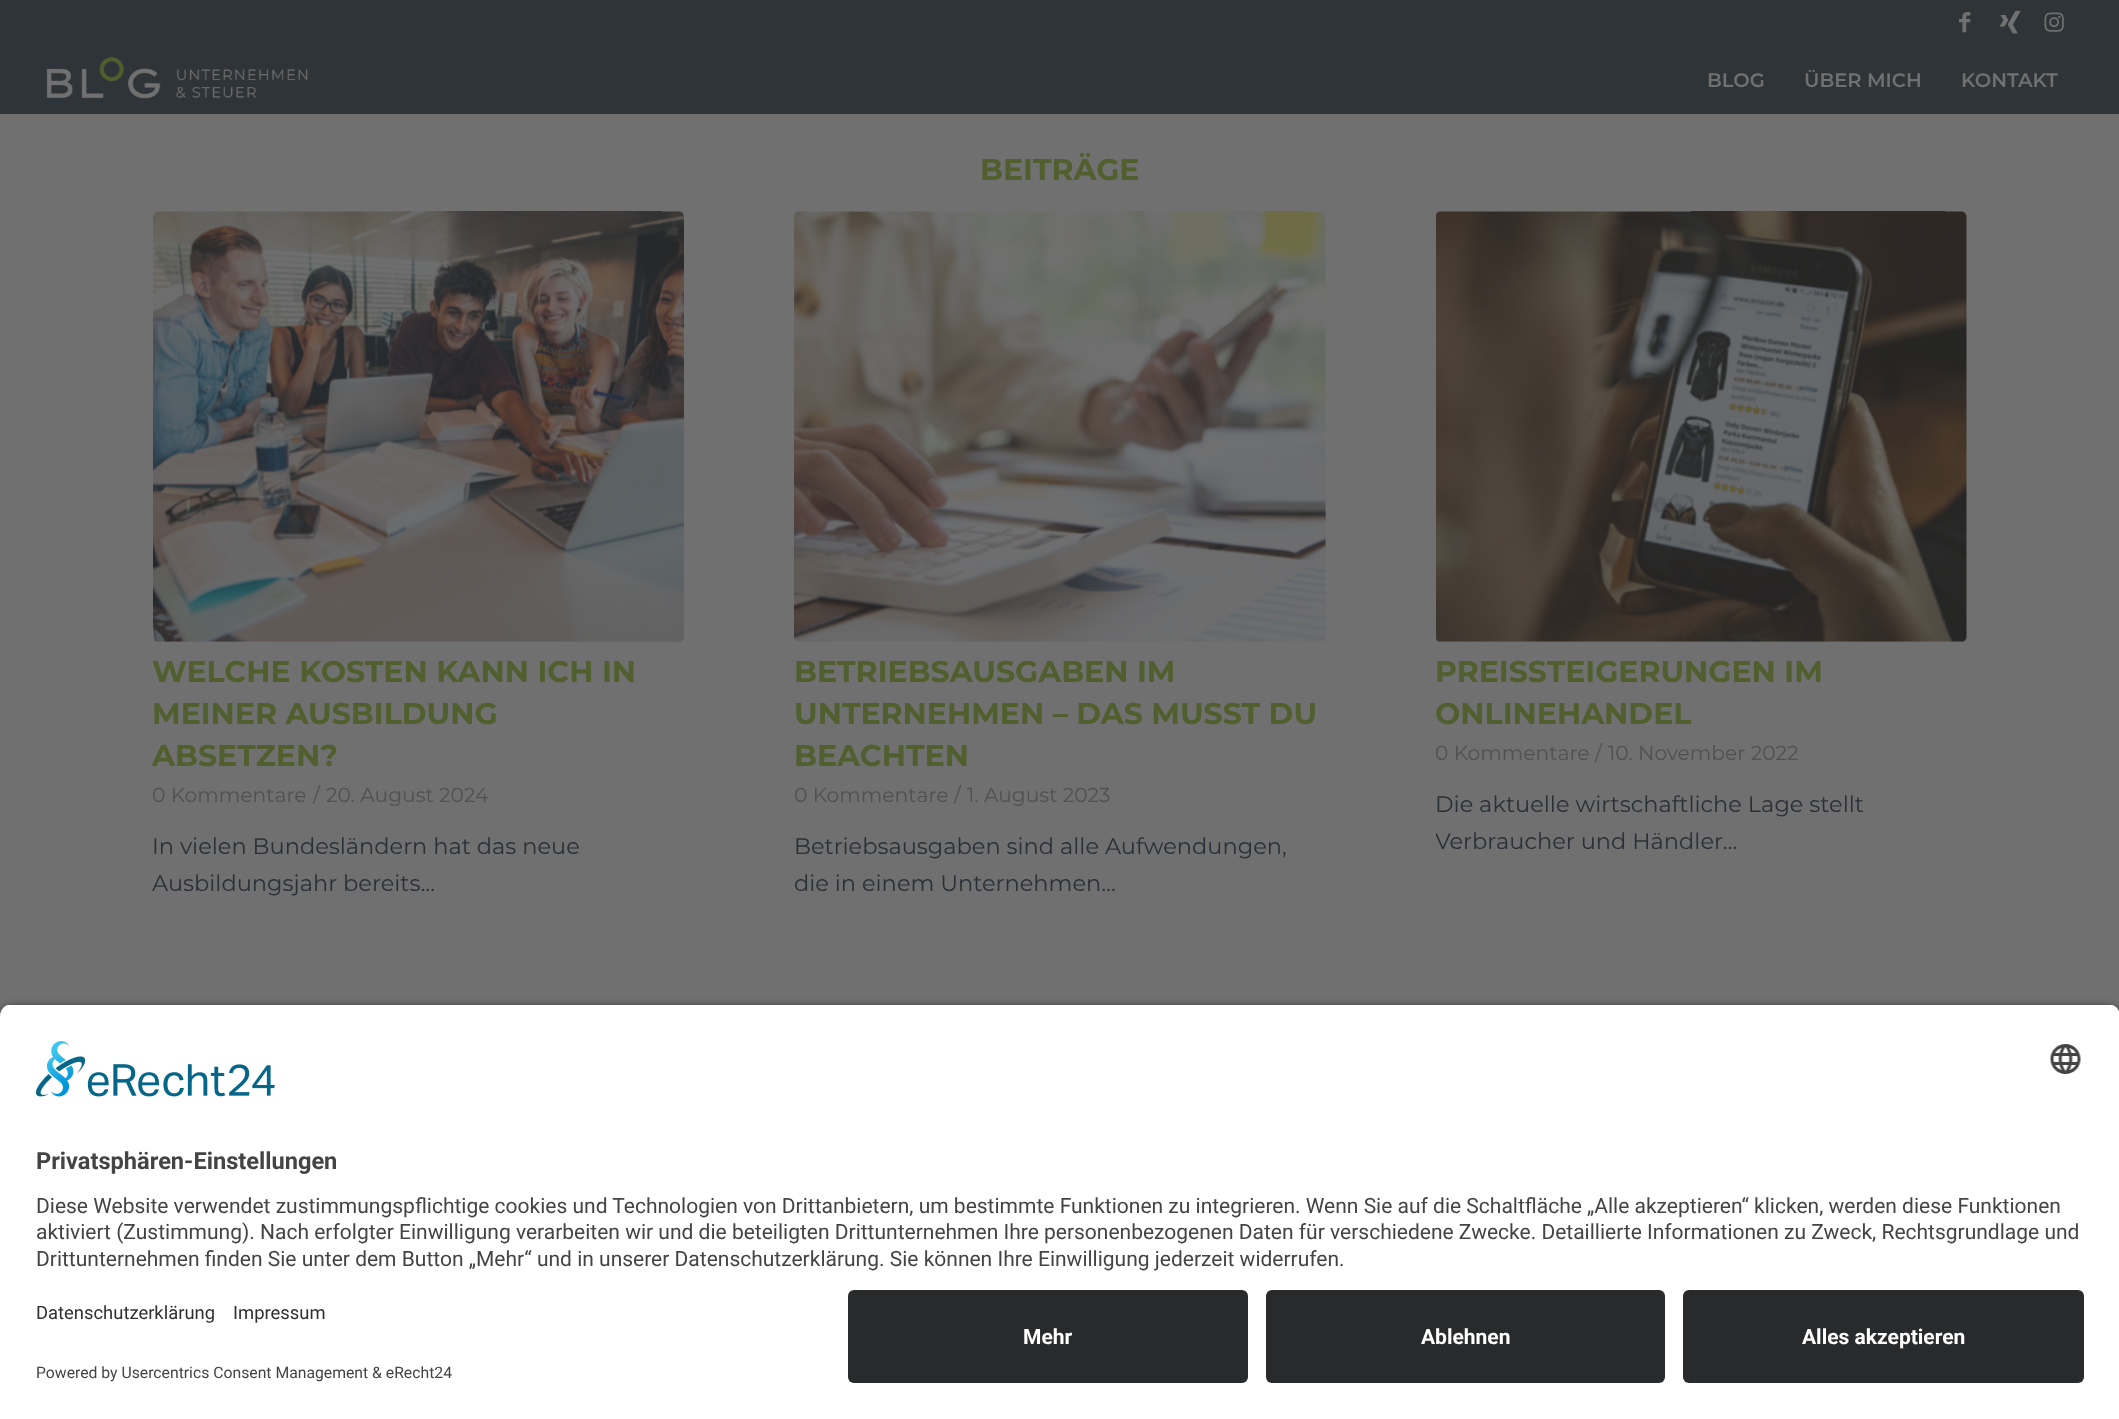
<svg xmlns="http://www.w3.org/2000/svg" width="2119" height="1419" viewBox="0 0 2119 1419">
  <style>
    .t1 { font: 600 19.5px Montserrat; fill: #707070; }
    .t2 { font: bold 30px Montserrat; fill: #515e2d; }
    .t3 { font: 20.25px Montserrat; fill: #515151; }
    .t4 { font: 22.5px Montserrat; fill: #293036; }
    .t5 { font: bold 23.6px Roboto; fill: #444; }
    .t6 { font: 21px Roboto; fill: #444; }
    .t7 { font: 18.4px Roboto; fill: #303030; }
    .t8 { font: 15.75px Roboto; fill: #444; }
    .t9 { font: bold 21px Roboto; fill: #fff; }
  </style>
  <defs>
    <clipPath id="clip1"><rect x="1436" y="788" width="531" height="73"/></clipPath>
    <clipPath id="clip2"><path d="M12 1004H2108C2114.5 1004 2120 1009.5 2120 1016V1278H0V1016C0 1009.5 5.5 1004 12 1004Z"/></clipPath>
  </defs>
  <rect width="100%" height="100%" fill="#707070"/>
  <rect x="0" y="0" width="2119" height="114" fill="#2e3438"/>
  <image x="1959" y="12" width="12" height="21" href="images/1.png"/>
  <image x="1999" y="10" width="22" height="24" href="images/2.png"/>
  <image x="2044" y="12" width="20" height="20" href="images/3.png"/>
  <image x="46" y="57" width="262" height="42" href="images/4.png"/>
  <text x="1707" y="87" class="t1">BLOG</text>
  <text x="1804" y="87" class="t1">ÜBER MICH</text>
  <text x="1961" y="87" class="t1">KONTAKT</text>
  <text x="980" y="180" class="t2">BEITRÄGE</text>
  <image x="153" y="211" width="531" height="431" href="images/5.png"/>
  <text x="152" y="682" class="t2">WELCHE KOSTEN KANN ICH IN</text>
  <text x="152" y="724" class="t2">MEINER AUSBILDUNG</text>
  <text x="152" y="766" class="t2">ABSETZEN?</text>
  <text x="152" y="802" class="t3">0 Kommentare</text>
  <text x="313" y="802" class="t3">/</text>
  <text x="326" y="802" class="t3">20. August 2024</text>
  <text x="152" y="854" class="t4">In vielen Bundesländern hat das neue</text>
  <text x="152" y="891" class="t4">Ausbildungsjahr bereits…</text>
  <image x="794" y="211" width="532" height="431" href="images/6.png"/>
  <text x="794" y="682" class="t2">BETRIEBSAUSGABEN IM</text>
  <text x="794" y="724" class="t2">UNTERNEHMEN – DAS MUSST DU</text>
  <text x="794" y="766" class="t2">BEACHTEN</text>
  <text x="794" y="802" class="t3">0 Kommentare</text>
  <text x="954" y="802" class="t3">/</text>
  <text x="967" y="802" class="t3">1. August 2023</text>
  <text x="794" y="854" class="t4">Betriebsausgaben sind alle Aufwendungen,</text>
  <text x="794" y="891" class="t4">die in einem Unternehmen…</text>
  <image x="1436" y="211" width="531" height="431" href="images/7.png"/>
  <text x="1435" y="682" class="t2">PREISSTEIGERUNGEN IM</text>
  <text x="1435" y="724" class="t2">ONLINEHANDEL</text>
  <text x="1435" y="760" class="t3">0 Kommentare</text>
  <text x="1595" y="760" class="t3">/</text>
  <text x="1608" y="760" class="t3">10. November 2022</text>
  <text x="1435" y="812" class="t4">Die aktuelle wirtschaftliche Lage stellt</text>
  <g clip-path="url(#clip1)">
    <text x="1435" y="849" class="t4">Verbraucher und Händler…</text>
  </g>
  <rect x="0" y="1008" width="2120" height="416" rx="12" fill="#000000cc" filter="blur(5px)"/>
  <g clip-path="url(#clip2)">
    <rect x="0" y="1005" width="2119" height="273" fill="#fff"/>
  </g>
  <image x="36" y="1041" width="239" height="56" href="images/8.png"/>
  <image x="2050" y="1044" width="31" height="30" href="images/9.png"/>
  <text x="36" y="1169" class="t5">Privatsphären-Einstellungen</text>
  <text x="36" y="1213" class="t6">Diese Website verwendet zustimmungspflichtige cookies und Technologien von Drittanbietern, um bestimmte Funktionen zu integrieren. Wenn Sie auf die Schaltfläche „Alle akzeptieren“ klicken, werden diese Funktionen</text>
  <text x="36" y="1239" class="t6">aktiviert (Zustimmung). Nach erfolgter Einwilligung verarbeiten wir und die beteiligten Drittunternehmen Ihre personenbezogenen Daten für verschiedene Zwecke. Detaillierte Informationen zu Zweck, Rechtsgrundlage und</text>
  <text x="36" y="1266" class="t6">Drittunternehmen finden Sie unter dem Button „Mehr“ und in unserer Datenschutzerklärung. Sie können Ihre Einwilligung jederzeit widerrufen.</text>
  <rect x="0" y="1278" width="2119" height="141" fill="#fff"/>
  <text x="36" y="1319" class="t7">Datenschutzerklärung</text>
  <text x="233" y="1319" class="t7">Impressum</text>
  <text x="36" y="1378" class="t8">Powered by Usercentrics Consent Management &amp; eRecht24</text>
  <rect x="848" y="1290" width="400" height="93" rx="6" fill="#292a2b"/>
  <text x="1023" y="1344" class="t9">Mehr</text>
  <rect x="1266" y="1290" width="399" height="93" rx="6" fill="#292a2b"/>
  <text x="1421" y="1344" class="t9">Ablehnen</text>
  <rect x="1683" y="1290" width="401" height="93" rx="6" fill="#292a2b"/>
  <text x="1802" y="1344" class="t9">Alles akzeptieren</text>
</svg>
